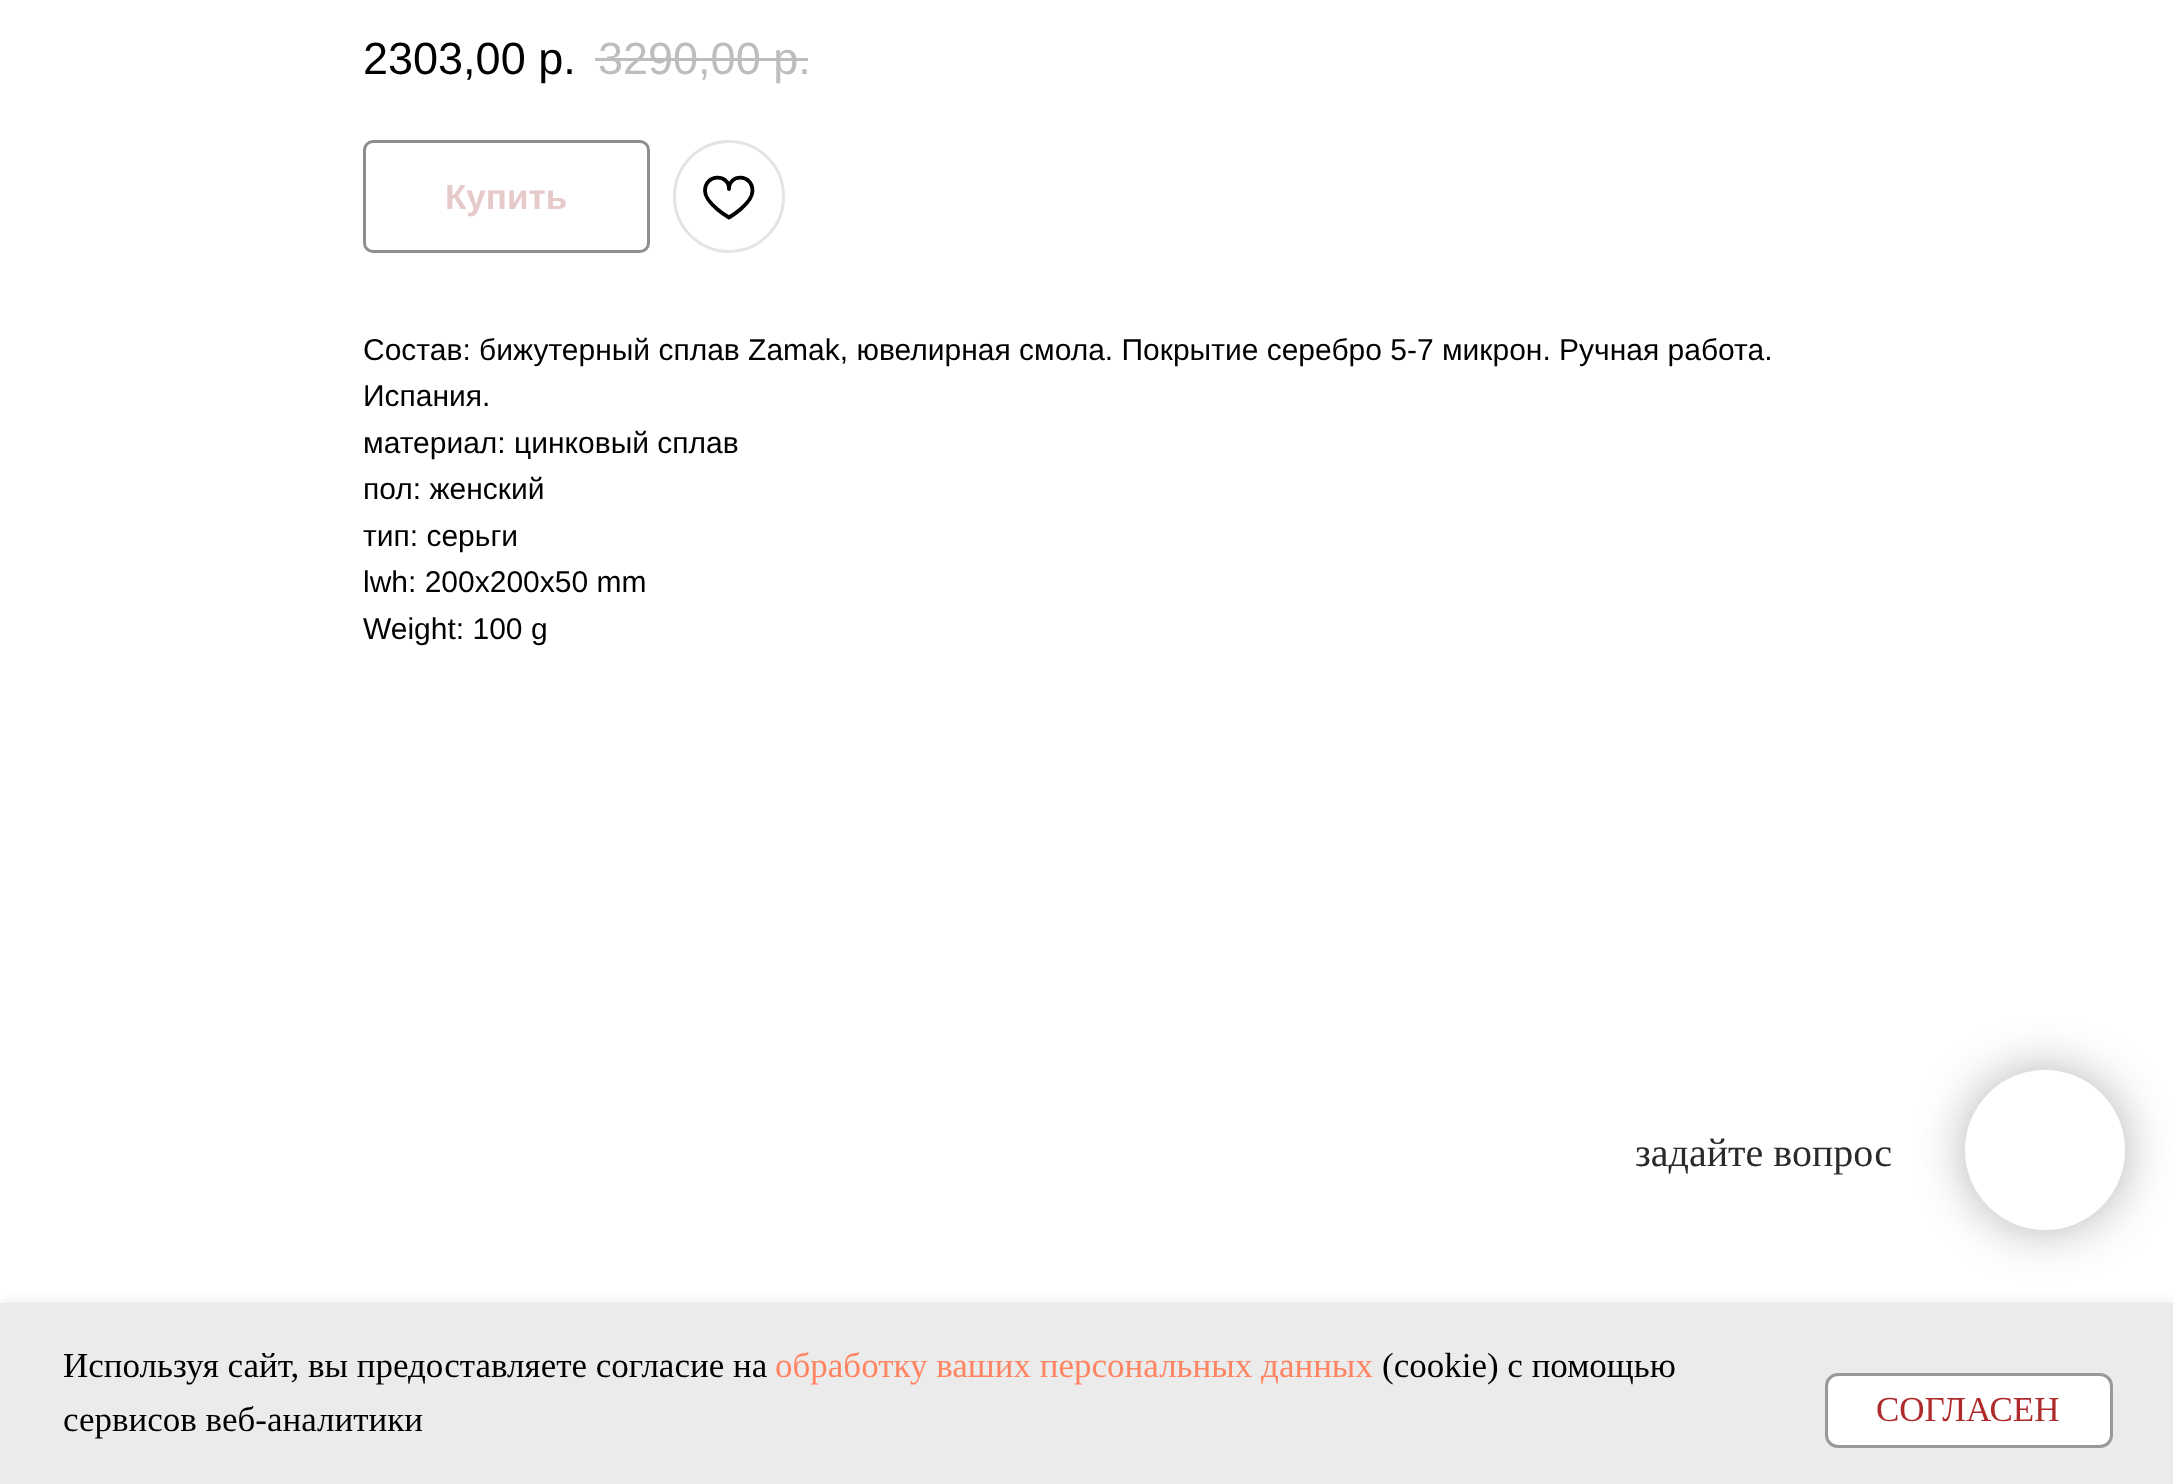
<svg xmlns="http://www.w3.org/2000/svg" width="2173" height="1484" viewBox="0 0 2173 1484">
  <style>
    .t1 { font: 45px Liberation Sans; fill: #000; }
    .t2 { font: 45px Liberation Sans; fill: #bdbdbd; }
    .t3 { font: bold 35px Liberation Sans; fill: #e6caca; }
    .t4 { font: 30px Liberation Sans; fill: #000; }
    .t5 { font: 40px Liberation Serif; fill: #2b2a2a; }
    .t6 { font: 35px Liberation Serif; fill: #000; }
    .t7 { font: 35px Liberation Serif; fill: #ff8562; }
    .t8 { font: 35px Liberation Serif; fill: #af2b2b; }
  </style>
  <rect width="100%" height="100%" fill="#fff"/>
  <text x="363" y="74" class="t1">2303,00 р.</text>
  <text x="598" y="74" class="t2">3290,00 р.</text>
  <rect x="595" y="58" width="213" height="3" fill="#bdbdbd"/>
  <rect x="364.5" y="141.5" width="284" height="110" rx="8.5" fill="none" stroke="#8f8e8e" stroke-width="3"/>
  <text x="445" y="209" class="t3">Купить</text>
  <rect x="674.5" y="141.5" width="109" height="110" rx="54.5" fill="none" stroke="#e4e4e4" stroke-width="3"/>
  <path d="M752.5 191C752.5 203.5 729 217.5 729 217.5C729 217.5 705 203.5 705 191C705 173.5 729 173.5 729 189C729 173.5 752.5 173.5 752.5 191Z" fill="none" stroke="#000" stroke-width="3.8" stroke-linejoin="round"/>
  <text x="363" y="360" class="t4">Состав: бижутерный сплав Zamak, ювелирная смола. Покрытие серебро 5-7 микрон. Ручная работа.</text>
  <text x="363" y="406" class="t4">Испания.</text>
  <text x="363" y="453" class="t4">материал: цинковый сплав</text>
  <text x="363" y="499" class="t4">пол: женский</text>
  <text x="363" y="546" class="t4">тип: серьги</text>
  <text x="363" y="592" class="t4">lwh: 200x200x50 mm</text>
  <text x="363" y="639" class="t4">Weight: 100 g</text>
  <text x="1635" y="1166" class="t5">задайте вопрос</text>
  <rect x="0" y="1303" width="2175" height="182" fill="#0000001a" filter="blur(6px)"/>
  <rect x="0" y="1303" width="2173" height="181" fill="#ebebeb"/>
  <rect x="1965" y="1070" width="160" height="160" rx="80" fill="#0000004d" filter="blur(25px)"/>
  <circle cx="2045" cy="1150" r="77.5" fill="#fff" stroke="#fff" stroke-width="5"/>
  <text x="63" y="1377" class="t6">Используя сайт, вы предоставляете согласие на</text>
  <text x="775" y="1377" class="t7">обработку ваших персональных данных</text>
  <text x="1382" y="1377" class="t6">(cookie) с помощью</text>
  <text x="63" y="1431" class="t6">сервисов веб-аналитики</text>
  <rect x="1826.5" y="1374.5" width="285" height="72" rx="11.5" fill="#fff" stroke="#999" stroke-width="3"/>
  <text x="1876" y="1421" class="t8">СОГЛАСЕН</text>
</svg>
